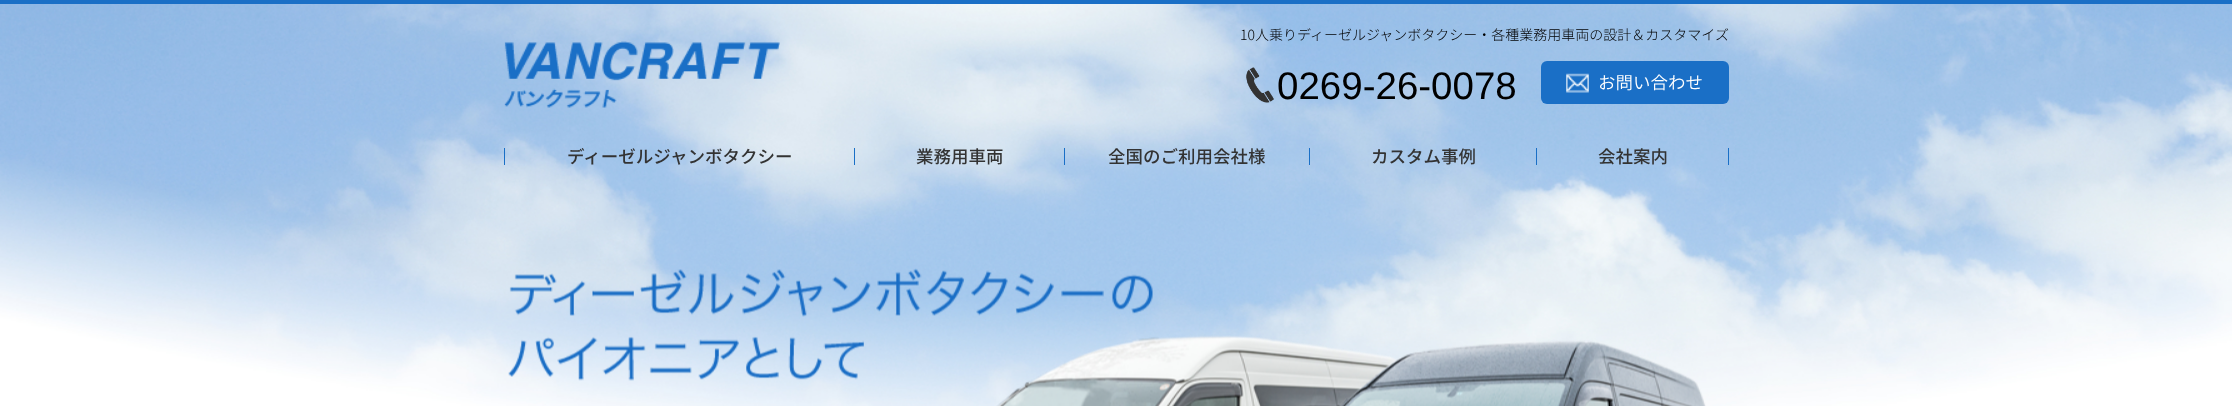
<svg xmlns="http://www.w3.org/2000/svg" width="2232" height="406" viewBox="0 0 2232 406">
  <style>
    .t1 { font: 300 14px 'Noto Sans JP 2'; fill: #000; }
    .t2 { font: 38.5px Liberation Sans; fill: #000; }
    .t3 { font: 300 17.5px Noto Sans JP; fill: #fff; }
    .t4 { font: 500 17.5px Noto Sans JP; fill: #333; }
  </style>
  <rect width="100%" height="100%" fill="#fff"/>
  <image x="0" y="4" width="2232" height="402" href="images/1.png"/>
  <rect x="0" y="0" width="2232" height="4" fill="#1a6fc6"/>
  <image x="504" y="41" width="276" height="67" href="images/2.png"/>
  <text x="1240" y="40" class="t1">10人乗りディーゼルジャンボタクシー・各種業務用車両の設計＆カスタマイズ</text>
  <image x="1246" y="67" width="28" height="36" href="images/3.png"/>
  <text x="1277" y="99" class="t2">0269-26-0078</text>
  <rect x="1541" y="61" width="188" height="43" rx="6" fill="#1a6fc6"/>
  <image x="1566" y="73" width="23" height="20" href="images/4.png"/>
  <text x="1598" y="89" class="t3">お問い合わせ</text>
  <rect x="504" y="148" width="1" height="17" fill="#1a6fc6"/>
  <text x="567" y="163" class="t4">ディーゼルジャンボタクシー</text>
  <rect x="854" y="148" width="1" height="17" fill="#1a6fc6"/>
  <text x="916" y="163" class="t4">業務用車両</text>
  <rect x="1064" y="148" width="1" height="17" fill="#1a6fc6"/>
  <text x="1108" y="163" class="t4">全国のご利用会社様</text>
  <rect x="1309" y="148" width="1" height="17" fill="#1a6fc6"/>
  <text x="1371" y="163" class="t4">カスタム事例</text>
  <rect x="1728" y="148" width="1" height="17" fill="#1a6fc6"/>
  <rect x="1536" y="148" width="1" height="17" fill="#1a6fc6"/>
  <text x="1598" y="163" class="t4">会社案内</text>
  <image x="508" y="268" width="1198" height="138" href="images/5.png"/>
</svg>
